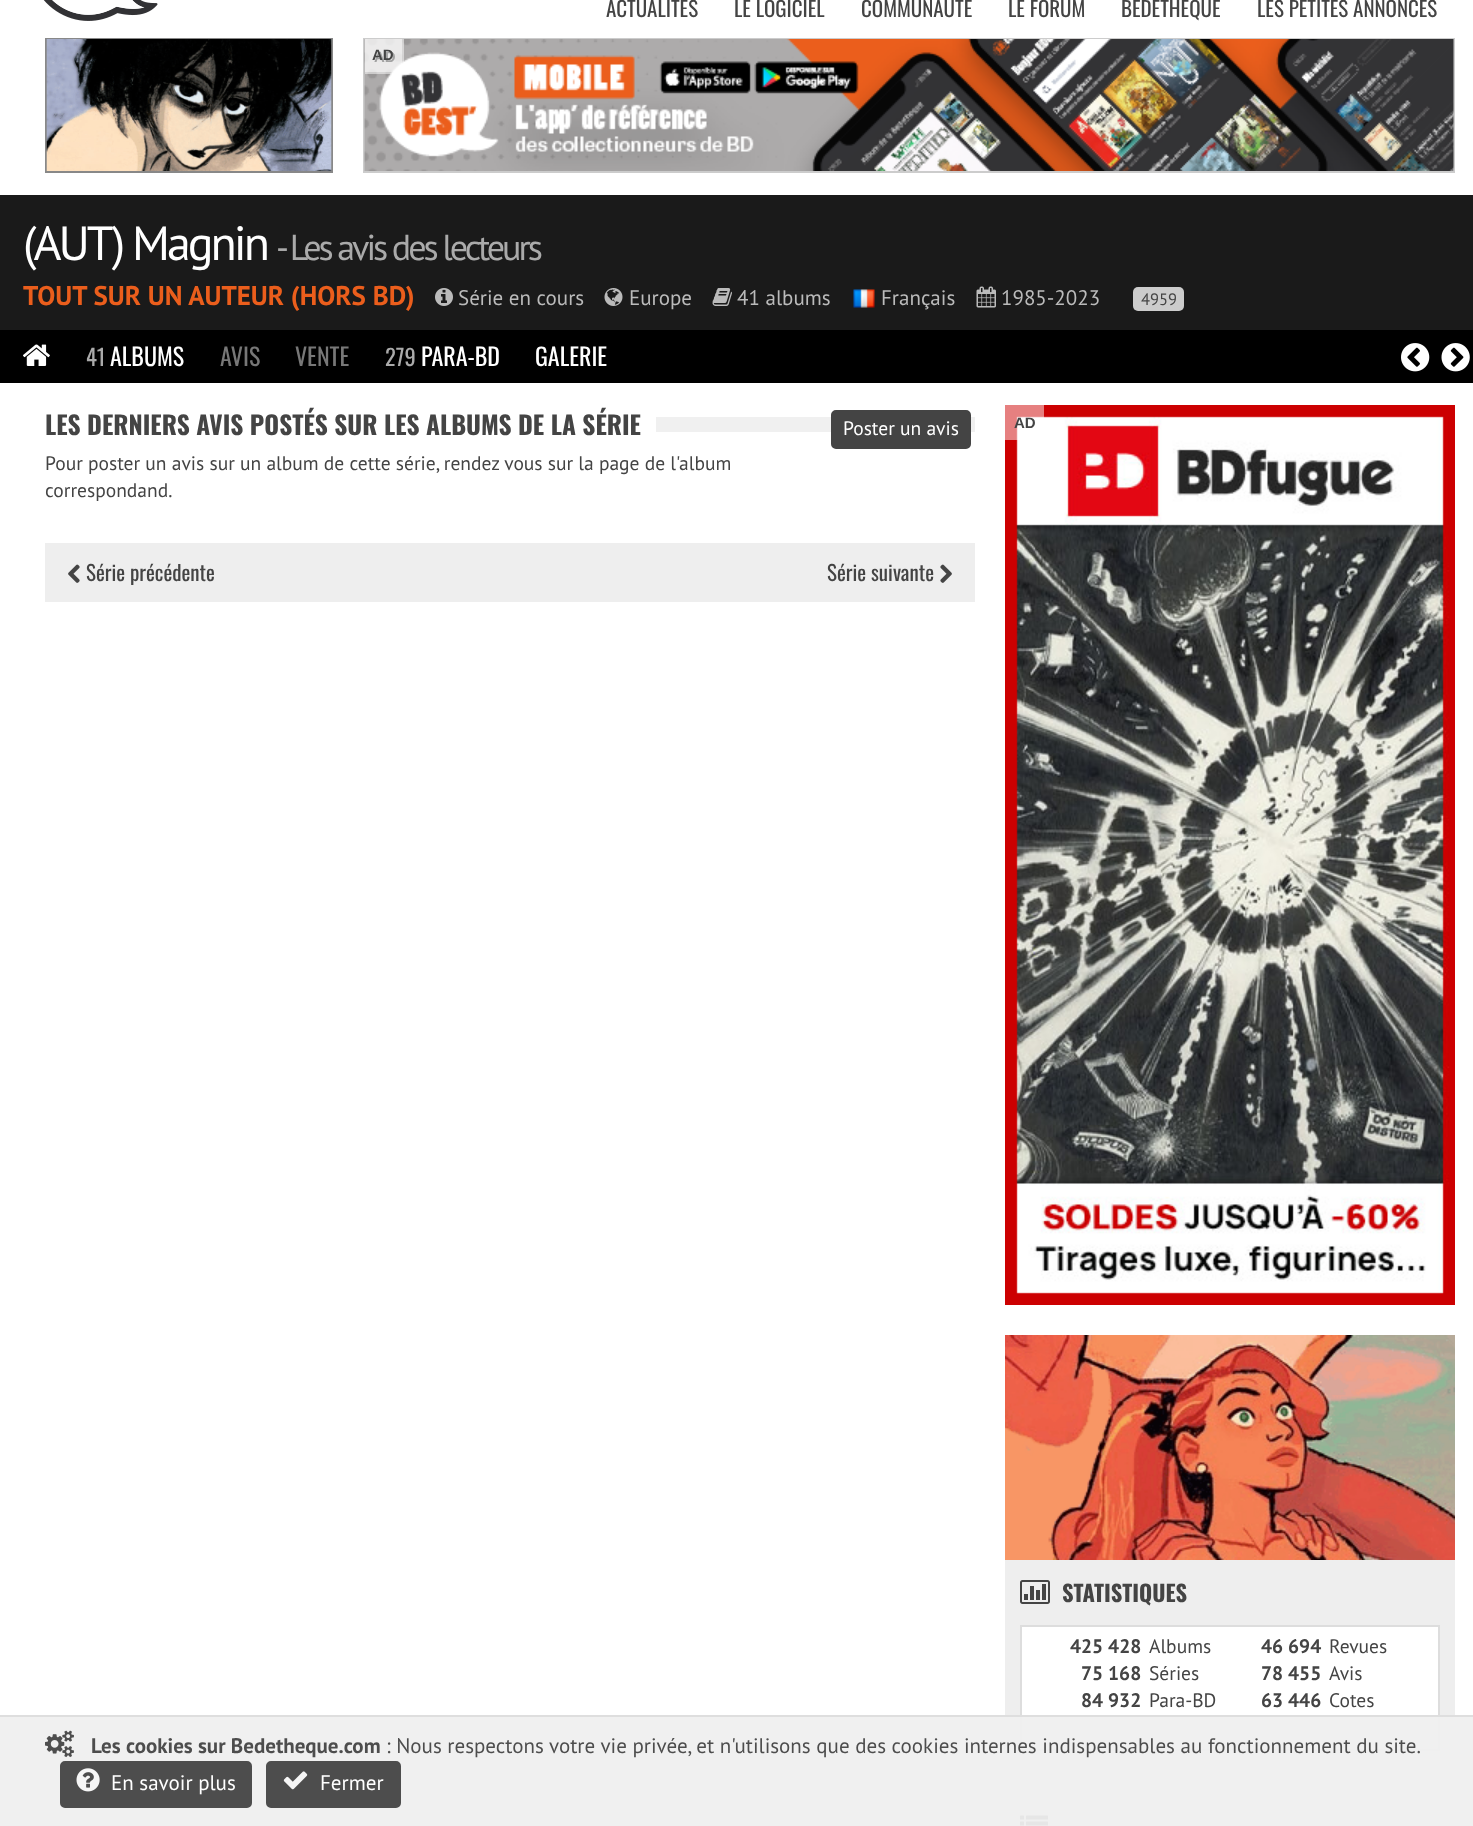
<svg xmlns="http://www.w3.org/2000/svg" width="1473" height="1826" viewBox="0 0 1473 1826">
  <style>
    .t1 { font: 21px Oswald; fill: #444; }
    .t2 { font: bold 15px Liberation Sans; fill: #444; }
    .t3 { font: 48px PT Sans; letter-spacing: -3px; fill: #fff; }
    .t4 { font: 36px PT Sans; letter-spacing: -3px; fill: #aaa; }
    .t5 { font: bold 27px PT Sans; fill: #eb5e1c; }
    .t6 { font: 21px PT Sans; fill: #bbb; }
    .t7 { font: 16.5px PT Sans; fill: #444; }
    .t8 { font: 22.5px Oswald; fill: #aaa; }
    .t9 { font: 24px Oswald; fill: #fff; }
    .t10 { font: 24px Oswald; fill: #777; }
    .t11 { font: bold 25.35px Oswald; fill: #444; }
    .t12 { font: 19.5px PT Sans; fill: #fff; }
    .t13 { font: 19.5px PT Sans; fill: #444; }
    .t14 { font: bold 22.5px Oswald; fill: #444; }
    .t15 { font: bold 19.5px PT Sans; fill: #444; }
    .t16 { font: bold 21px PT Sans; fill: #4d4d4d; }
    .t17 { font: 21px PT Sans; fill: #4d4d4d; }
    .t18 { font: 21px PT Sans; fill: #fff; }
  </style>
  <rect width="100%" height="100%" fill="#fff"/>
  <image x="43" y="0" width="115" height="21" href="images/1.png"/>
  <text x="606" y="17" class="t1">ACTUALITÉS</text>
  <text x="734" y="17" class="t1">LE LOGICIEL</text>
  <text x="861" y="17" class="t1">COMMUNAUTÉ</text>
  <text x="1008" y="17" class="t1">LE FORUM</text>
  <text x="1121" y="17" class="t1">BEDETHEQUE</text>
  <text x="1257" y="17" class="t1">LES PETITES ANNONCES</text>
  <rect x="46" y="39" width="286" height="133" fill="none" stroke="#888" stroke-width="2"/>
  <image x="46" y="39" width="286" height="132" href="images/2.png"/>
  <rect x="364" y="39" width="1090" height="133" fill="none" stroke="#ccc" stroke-width="2"/>
  <image x="364" y="39" width="1090" height="132" href="images/3.png"/>
  <path d="M365 39H404V66C404 70.5 400.5 74 396 74H365Z" fill="#ffffff80"/>
  <text x="374" y="62" class="t2">AD</text>
  <path d="M365 39H402V64C402 68.5 398.5 72 394 72H365Z" fill="#ffffff80"/>
  <text x="372" y="60" class="t2">AD</text>
  <rect x="0" y="195" width="1473" height="135" fill="#1a1a1a"/>
  <text x="23" y="260" class="t3">(AUT) Magnin</text>
  <text x="276" y="260" class="t4">- Les avis des lecteurs</text>
  <text x="23" y="305" class="t5">TOUT SUR UN AUTEUR (HORS BD)</text>
  <image x="435" y="288" width="18" height="18" href="images/4.png"/>
  <text x="458" y="305" class="t6">Série en cours</text>
  <image x="604" y="288" width="19" height="18" href="images/5.png"/>
  <text x="629" y="305" class="t6">Europe</text>
  <image x="712" y="288" width="20" height="18" href="images/6.png"/>
  <text x="737" y="305" class="t6">41 albums</text>
  <image x="853" y="289" width="22" height="19" href="images/7.png"/>
  <text x="881" y="305" class="t6">Français</text>
  <image x="976" y="286" width="20" height="22" href="images/8.png"/>
  <text x="1001" y="305" class="t6">1985-2023</text>
  <rect x="1133" y="287" width="51" height="24" rx="5" fill="#ccc"/>
  <text x="1141" y="305" class="t7">4959</text>
  <rect x="0" y="330" width="1473" height="53" fill="#000"/>
  <image x="23" y="344" width="27" height="22" href="images/9.png"/>
  <text x="86" y="366" class="t8">41</text>
  <text x="110" y="366" class="t9">ALBUMS</text>
  <text x="220" y="366" class="t10">AVIS</text>
  <text x="295" y="366" class="t10">VENTE</text>
  <text x="385" y="366" class="t8">279</text>
  <text x="421" y="366" class="t9">PARA-BD</text>
  <text x="535" y="366" class="t9">GALERIE</text>
  <image x="1401" y="343" width="29" height="29" href="images/10.png"/>
  <image x="1441" y="343" width="29" height="29" href="images/11.png"/>
  <rect x="656" y="417" width="319" height="15" fill="#f0f0f0"/>
  <text x="45" y="435" class="t11">LES DERNIERS AVIS POSTÉS SUR LES ALBUMS DE LA SÉRIE</text>
  <rect x="832" y="411" width="138" height="37" rx="4" fill="#444" stroke="#444" stroke-width="2"/>
  <text x="843" y="435" class="t12">Poster un avis</text>
  <text x="45" y="470" class="t13">Pour poster un avis sur un album de cette série, rendez vous sur la page de l'album</text>
  <text x="45" y="497" class="t13">correspondand.</text>
  <rect x="45" y="543" width="930" height="59" fill="#eee"/>
  <image x="68" y="564" width="12" height="19" href="images/12.png"/>
  <text x="86" y="581" class="t1">Série précédente</text>
  <text x="827" y="581" class="t1">Série suivante</text>
  <image x="940" y="564" width="12" height="19" href="images/13.png"/>
  <image x="1005" y="405" width="450" height="900" href="images/14.png"/>
  <path d="M1005 405H1044V432C1044 436.5 1040.5 440 1036 440H1005Z" fill="#ffffff80"/>
  <text x="1014" y="428" class="t2">AD</text>
  <image x="1005" y="1335" width="450" height="225" href="images/15.png"/>
  <rect x="1005" y="1560" width="450" height="206" fill="#eee"/>
  <image x="1020" y="1580" width="30" height="24" href="images/16.png"/>
  <text x="1062" y="1602" class="t14">STATISTIQUES</text>
  <rect x="1021" y="1626" width="418" height="124" fill="#fff" stroke="#ddd" stroke-width="2"/>
  <text x="1070" y="1653" class="t15">425 428</text>
  <text x="1149" y="1653" class="t13">Albums</text>
  <text x="1261" y="1653" class="t15">46 694</text>
  <text x="1329" y="1653" class="t13">Revues</text>
  <text x="1081" y="1680" class="t15">75 168</text>
  <text x="1149" y="1680" class="t13">Séries</text>
  <text x="1261" y="1680" class="t15">78 455</text>
  <text x="1329" y="1680" class="t13">Avis</text>
  <text x="1081" y="1707" class="t15">84 932</text>
  <text x="1149" y="1707" class="t13">Para-BD</text>
  <text x="1261" y="1707" class="t15">63 446</text>
  <text x="1329" y="1707" class="t13">Cotes</text>
  <rect x="1005" y="1796" width="450" height="30" fill="#eee"/>
  <rect x="1005" y="1795" width="450" height="1" fill="#f7f7f7"/>
  <image x="1020" y="1815" width="28" height="11" href="images/17.png"/>
  <rect x="0" y="1717" width="1473" height="109" fill="#efefeff2"/>
  <rect x="0" y="1715" width="1473" height="2" fill="#dedede"/>
  <image x="45" y="1730" width="29" height="28" href="images/18.png"/>
  <text x="91" y="1753" class="t16">Les cookies sur Bedetheque.com</text>
  <text x="386" y="1753" class="t17">: Nous respectons votre vie privée, et n'utilisons que des cookies internes indispensables au fonctionnement du site.</text>
  <rect x="61" y="1762" width="190" height="45" rx="4" fill="#4d4d4d" stroke="#4d4d4d" stroke-width="2"/>
  <image x="76" y="1768" width="24" height="24" href="images/19.png"/>
  <text x="111" y="1790" class="t18">En savoir plus</text>
  <rect x="267" y="1762" width="133" height="45" rx="4" fill="#4d4d4d" stroke="#4d4d4d" stroke-width="2"/>
  <image x="283" y="1771" width="25" height="19" href="images/20.png"/>
  <text x="320" y="1790" class="t18">Fermer</text>
</svg>
